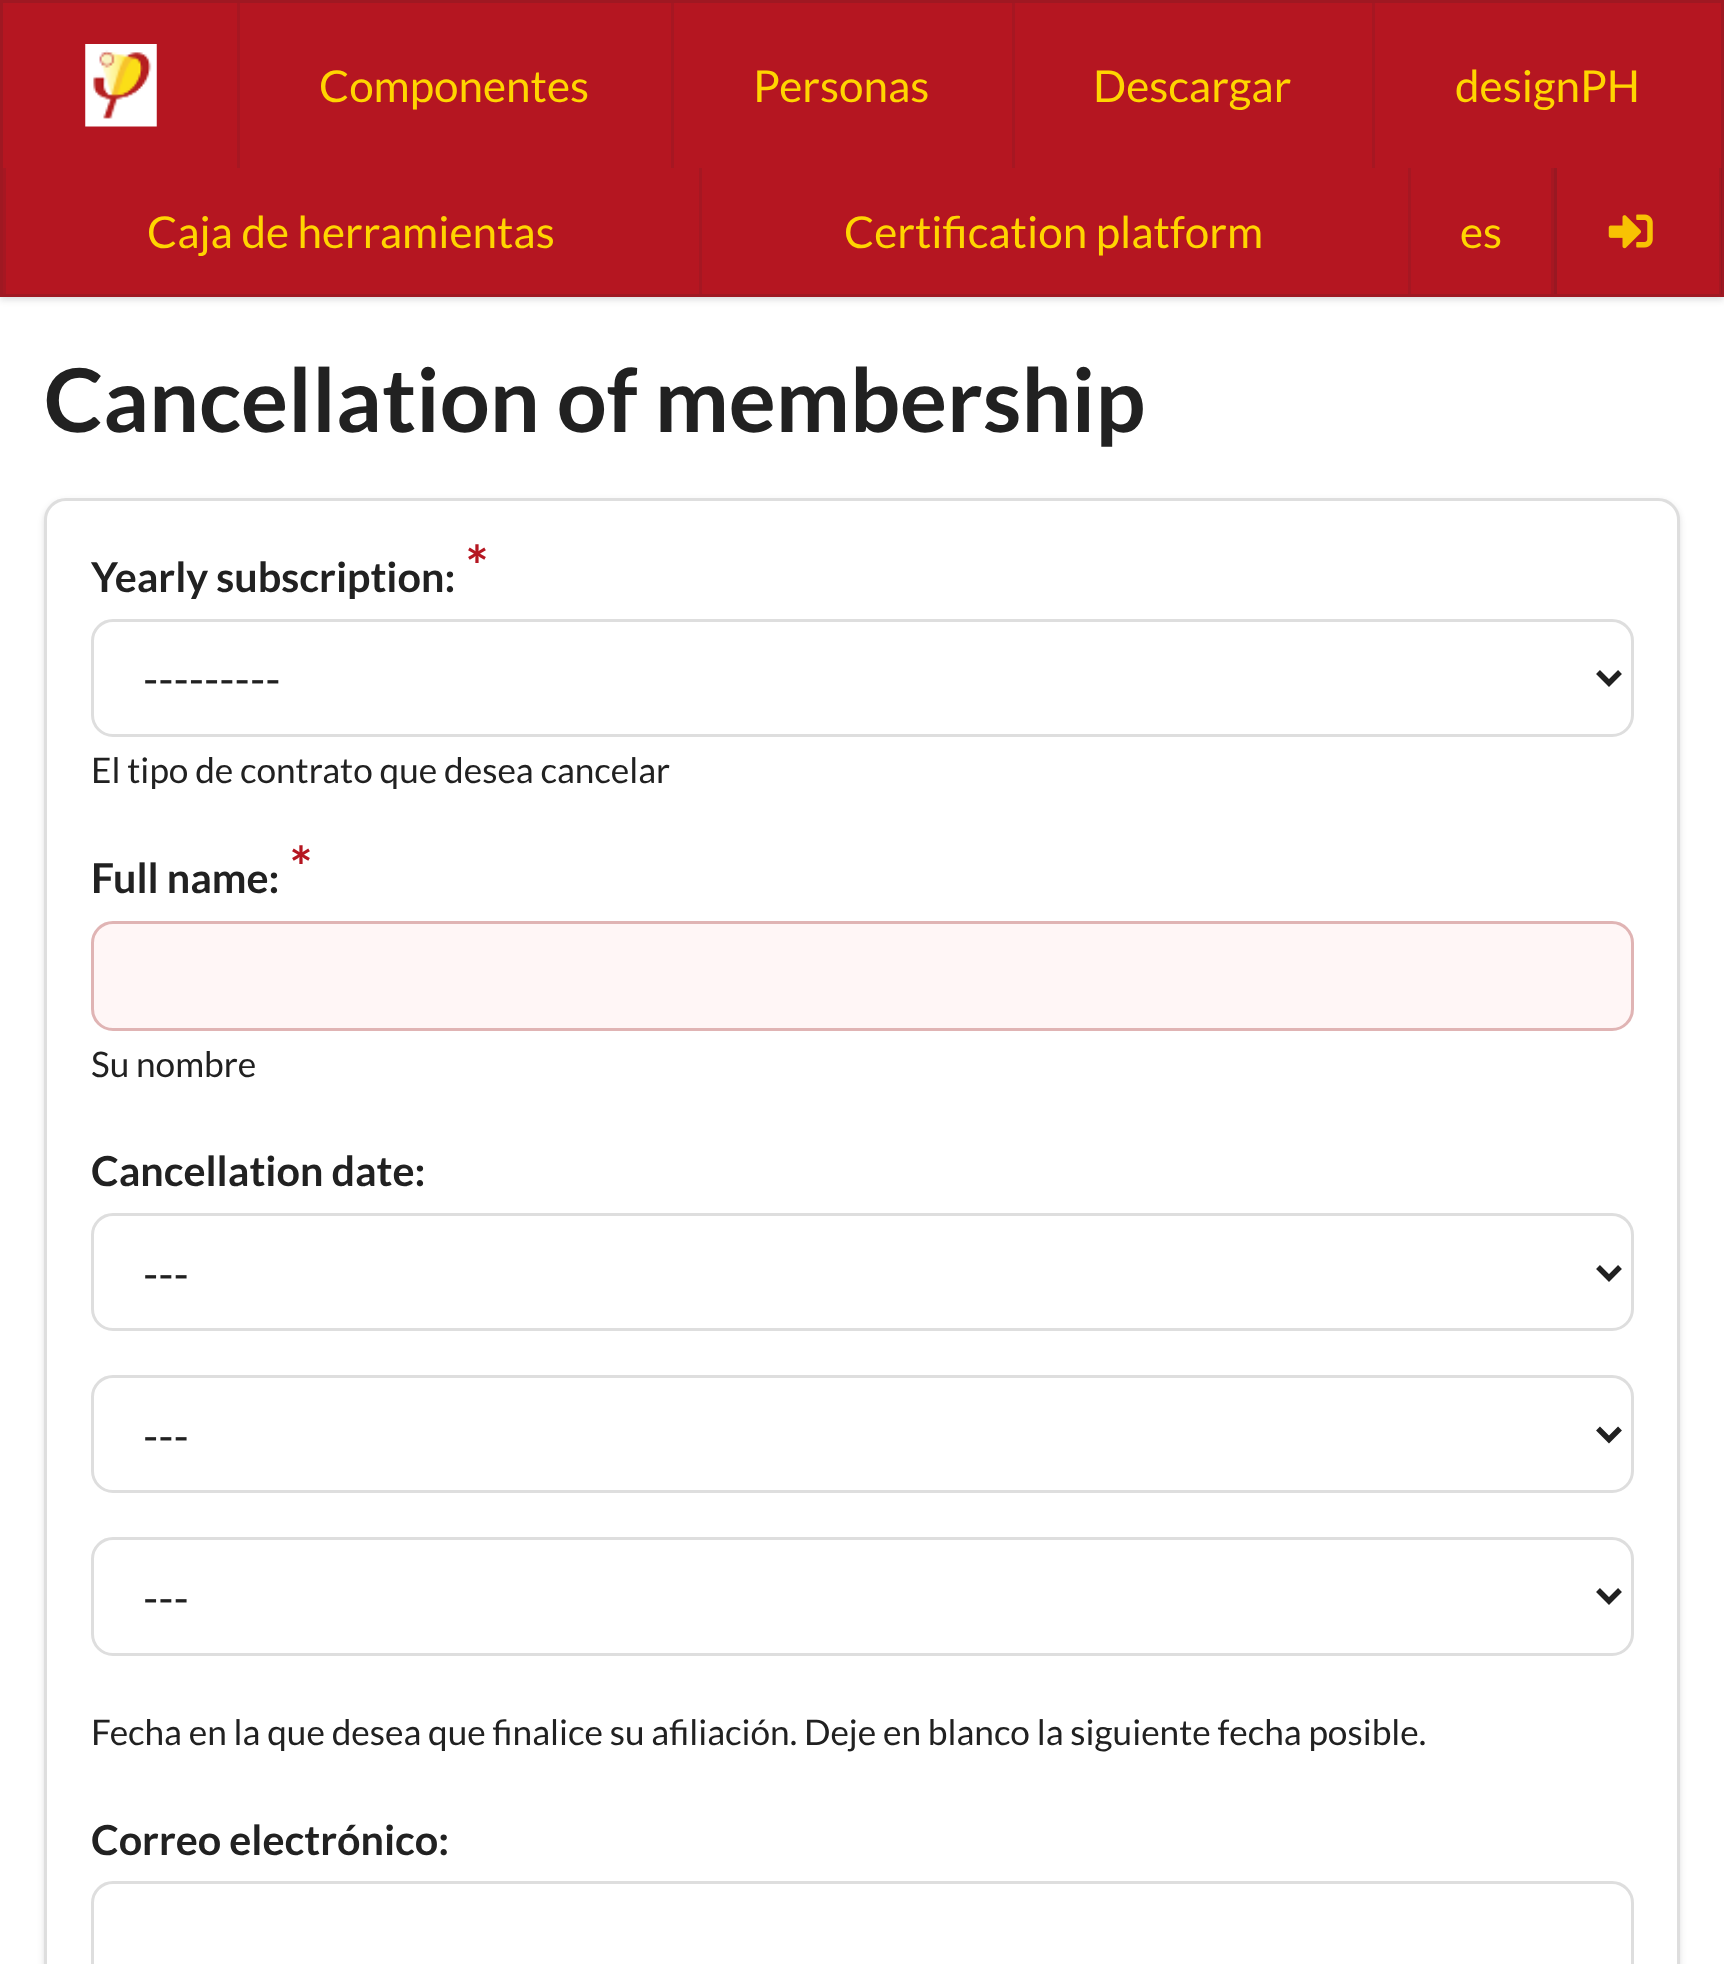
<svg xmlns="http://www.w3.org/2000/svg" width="1724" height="1964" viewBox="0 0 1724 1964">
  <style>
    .t1 { font: 44px Lato; fill: #ffd500; }
    .t2 { font: bold 88px Lato; fill: #212121; }
    .t3 { font: bold 55px Lato; fill: #b51621; }
    .t4 { font: bold 41.25px Lato; fill: #212121; }
    .t5 { font: 44px Lato; fill: #212121; }
    .t6 { font: 35.2px Lato; fill: #212121; }
  </style>
  <rect width="100%" height="100%" fill="#fff"/>
  <rect x="0" y="3" width="1724" height="297" fill="#22242626" filter="blur(3px)"/>
  <rect x="1.5" y="1.5" width="1721" height="294" fill="#b51621" stroke="#9f1822" stroke-width="3"/>
  <image x="85" y="44" width="72" height="83" href="images/1.png"/>
  <rect x="237" y="3" width="3" height="165" fill="#a61722"/>
  <text x="319" y="102" class="t1">Componentes</text>
  <rect x="671" y="3" width="3" height="165" fill="#a61722"/>
  <text x="753" y="102" class="t1">Personas</text>
  <rect x="1012" y="3" width="3" height="165" fill="#a61722"/>
  <text x="1093" y="102" class="t1">Descargar</text>
  <rect x="1372" y="3" width="3" height="165" fill="#a61722"/>
  <text x="1455" y="102" class="t1">designPH</text>
  <rect x="3" y="168" width="3" height="126" fill="#a61722"/>
  <text x="147" y="248" class="t1">Caja de herramientas</text>
  <rect x="1408" y="168" width="3" height="126" fill="#a61722"/>
  <rect x="699" y="168" width="3" height="126" fill="#a61722"/>
  <text x="844" y="248" class="t1">Certification platform</text>
  <rect x="1551" y="168" width="3" height="126" fill="#a61722"/>
  <text x="1460" y="248" class="t1">es</text>
  <rect x="1719" y="168" width="3" height="126" fill="#2224261a"/>
  <rect x="1554" y="168" width="3" height="126" fill="#991822"/>
  <image x="1608" y="214" width="45" height="35" href="images/2.png"/>
  <text x="44" y="432" class="t2">Cancellation of membership</text>
  <rect x="44" y="501" width="1636" height="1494" rx="22" fill="#22242626" filter="blur(3px)"/>
  <rect x="45.5" y="499.5" width="1633" height="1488" rx="20.5" fill="#fff" stroke="#dedede" stroke-width="3"/>
  <text x="466" y="586" class="t3">*</text>
  <text x="91" y="592" class="t4">Yearly subscription:</text>
  <rect x="92.5" y="620.5" width="1540" height="115" rx="20.5" fill="none" stroke="#dedede" stroke-width="3"/>
  <path d="M1598 672L1609 683L1620 672" fill="none" stroke="#212121" stroke-width="5.5"/>
  <text x="143" y="695" class="t5">---------</text>
  <text x="91" y="783" class="t6">El tipo de contrato que desea cancelar</text>
  <text x="290" y="887" class="t3">*</text>
  <text x="91" y="893" class="t4">Full name:</text>
  <rect x="92.5" y="922.5" width="1540" height="107" rx="20.5" fill="#fff6f6" stroke="#e0b4b4" stroke-width="3"/>
  <text x="91" y="1077" class="t6">Su nombre</text>
  <text x="91" y="1186" class="t4">Cancellation date:</text>
  <rect x="92.5" y="1214.5" width="1540" height="115" rx="20.5" fill="none" stroke="#dedede" stroke-width="3"/>
  <path d="M1598 1267L1609 1278L1620 1267" fill="none" stroke="#212121" stroke-width="5.5"/>
  <text x="143" y="1290" class="t5">---</text>
  <rect x="92.5" y="1376.5" width="1540" height="115" rx="20.5" fill="none" stroke="#dedede" stroke-width="3"/>
  <path d="M1598 1428.5L1609 1439.5L1620 1428.5" fill="none" stroke="#212121" stroke-width="5.5"/>
  <text x="143" y="1452" class="t5">---</text>
  <rect x="92.5" y="1538.5" width="1540" height="116" rx="20.5" fill="none" stroke="#dedede" stroke-width="3"/>
  <path d="M1598 1590L1609 1601L1620 1590" fill="none" stroke="#212121" stroke-width="5.5"/>
  <text x="143" y="1614" class="t5">---</text>
  <text x="91" y="1745" class="t6">Fecha en la que desea que finalice su afiliación. Deje en blanco la siguiente fecha posible.</text>
  <text x="91" y="1855" class="t4">Correo electrónico:</text>
  <rect x="92.5" y="1882.5" width="1540" height="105" rx="20.5" fill="none" stroke="#dedede" stroke-width="3"/>
</svg>
